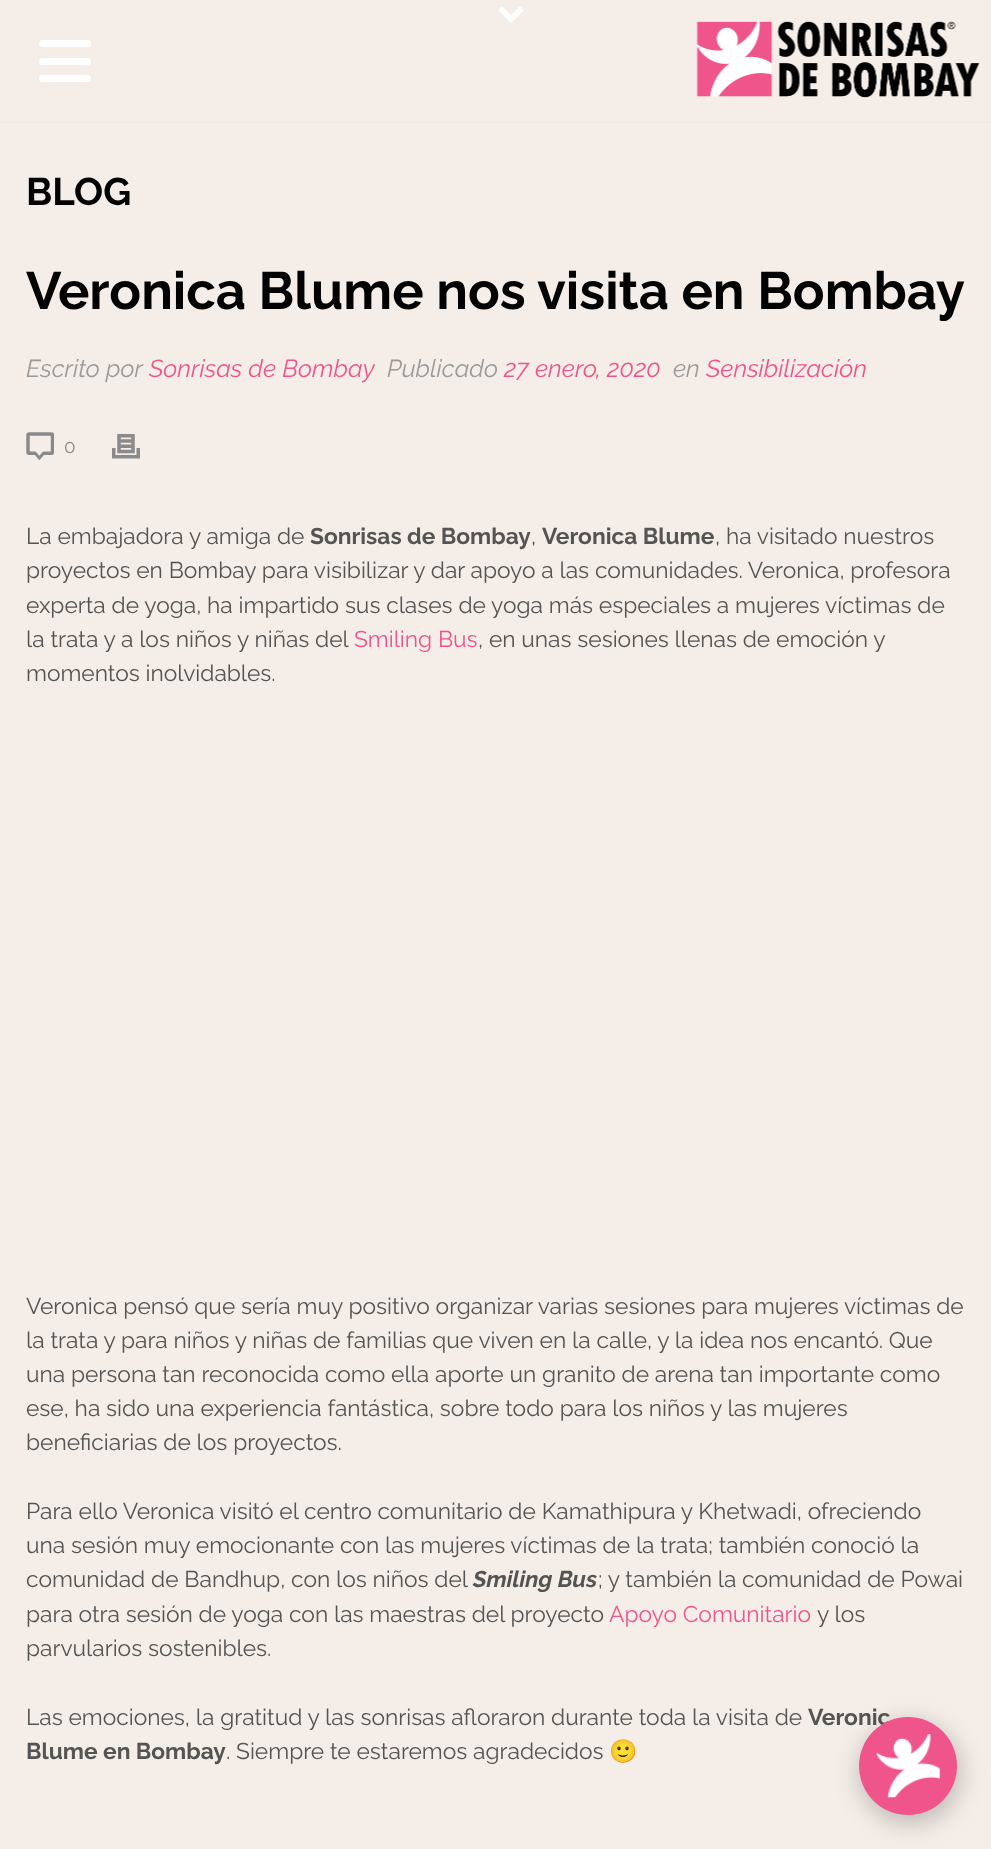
<svg xmlns="http://www.w3.org/2000/svg" width="991" height="1849" viewBox="0 0 991 1849">
  <style>
    .t1 { font: bold 38.5px Raleway; fill: #020202; }
    .t2 { font: bold 52.5px Raleway; fill: #020202; }
    .t3 { font: italic 24.5px Raleway; fill: #9a9a9a; }
    .t4 { font: italic 24.5px Raleway; fill: #ef548b; }
    .t5 { font: 19px Raleway; fill: #8a8a8a; }
    .t6 { font: 22.75px Raleway; fill: #545453; }
    .t7 { font: bold 22.75px Raleway; fill: #545453; }
    .t8 { font: 22.75px Raleway; fill: #ef548b; }
    .t9 { font: italic bold 22.75px Raleway; fill: #545453; }
    .t10 { font: 22.75px Noto Color Emoji; fill: #545453; }
  </style>
  <rect width="100%" height="100%" fill="#f4ede8"/>
  <rect x="0" y="121" width="991" height="2" fill="#ededed"/>
  <image x="498" y="6" width="26" height="17" href="images/1.png"/>
  <rect x="39" y="40" width="52" height="7" rx="3.5" fill="#fff"/>
  <rect x="39" y="58" width="52" height="7" rx="3.5" fill="#fff"/>
  <rect x="39" y="75" width="52" height="7" rx="3.5" fill="#fff"/>
  <image x="696" y="21" width="284" height="77" href="images/2.png"/>
  <text x="26" y="205" class="t1">BLOG</text>
  <text x="26" y="309" class="t2">Veronica Blume nos visita en Bombay</text>
  <text x="26" y="377" class="t3">Escrito por</text>
  <text x="149" y="377" class="t4">Sonrisas de Bombay</text>
  <text x="387" y="377" class="t3">Publicado</text>
  <text x="504" y="377" class="t4">27 enero, 2020</text>
  <text x="673" y="377" class="t3">en</text>
  <text x="706" y="377" class="t4">Sensibilización</text>
  <image x="26" y="432" width="28" height="28" href="images/3.png"/>
  <text x="64" y="453" class="t5">0</text>
  <image x="112" y="434" width="28" height="25" href="images/4.png"/>
  <text x="26" y="544" class="t6">La embajadora y amiga de</text>
  <text x="310" y="544" class="t7">Sonrisas de Bombay</text>
  <text x="531" y="544" class="t6">,</text>
  <text x="542" y="544" class="t7">Veronica Blume</text>
  <text x="715" y="544" class="t6">, ha visitado nuestros</text>
  <text x="26" y="578" class="t6">proyectos en Bombay para visibilizar y dar apoyo a las comunidades. Veronica, profesora</text>
  <text x="26" y="613" class="t6">experta de yoga, ha impartido sus clases de yoga más especiales a mujeres víctimas de</text>
  <text x="26" y="647" class="t6">la trata y a los niños y niñas del</text>
  <text x="354" y="647" class="t8">Smiling Bus</text>
  <text x="478" y="647" class="t6">, en unas sesiones llenas de emoción y</text>
  <text x="26" y="681" class="t6">momentos inolvidables.</text>
  <text x="26" y="1314" class="t6">Veronica pensó que sería muy positivo organizar varias sesiones para mujeres víctimas de</text>
  <text x="26" y="1348" class="t6">la trata y para niños y niñas de familias que viven en la calle, y la idea nos encantó. Que</text>
  <text x="26" y="1382" class="t6">una persona tan reconocida como ella aporte un granito de arena tan importante como</text>
  <text x="26" y="1416" class="t6">ese, ha sido una experiencia fantástica, sobre todo para los niños y las mujeres</text>
  <text x="26" y="1450" class="t6">beneficiarias de los proyectos.</text>
  <text x="26" y="1519" class="t6">Para ello Veronica visitó el centro comunitario de Kamathipura y Khetwadi, ofreciendo</text>
  <text x="26" y="1553" class="t6">una sesión muy emocionante con las mujeres víctimas de la trata; también conoció la</text>
  <text x="26" y="1587" class="t6">comunidad de Bandhup, con los niños del</text>
  <text x="473" y="1587" class="t9">Smiling Bus</text>
  <text x="598" y="1587" class="t6">; y también la comunidad de Powai</text>
  <text x="26" y="1622" class="t6">para otra sesión de yoga con las maestras del proyecto</text>
  <text x="609" y="1622" class="t8">Apoyo Comunitario</text>
  <text x="817" y="1622" class="t6">y los</text>
  <text x="26" y="1656" class="t6">parvularios sostenibles.</text>
  <text x="26" y="1725" class="t6">Las emociones, la gratitud y las sonrisas afloraron durante toda la visita de</text>
  <text x="808" y="1725" class="t7">Veronic</text>
  <text x="26" y="1759" class="t7">Blume en Bombay</text>
  <text x="226" y="1759" class="t6">. Siempre te estaremos agradecidos</text>
  <text x="609" y="1759" class="t10">🙂</text>
  <rect x="861" y="1724" width="98" height="98" rx="49" fill="#0202023d" filter="blur(13px)"/>
  <circle cx="908" cy="1766" r="49" fill="#ef548b"/>
  <image x="876" y="1734" width="64" height="64" href="images/5.png"/>
</svg>
